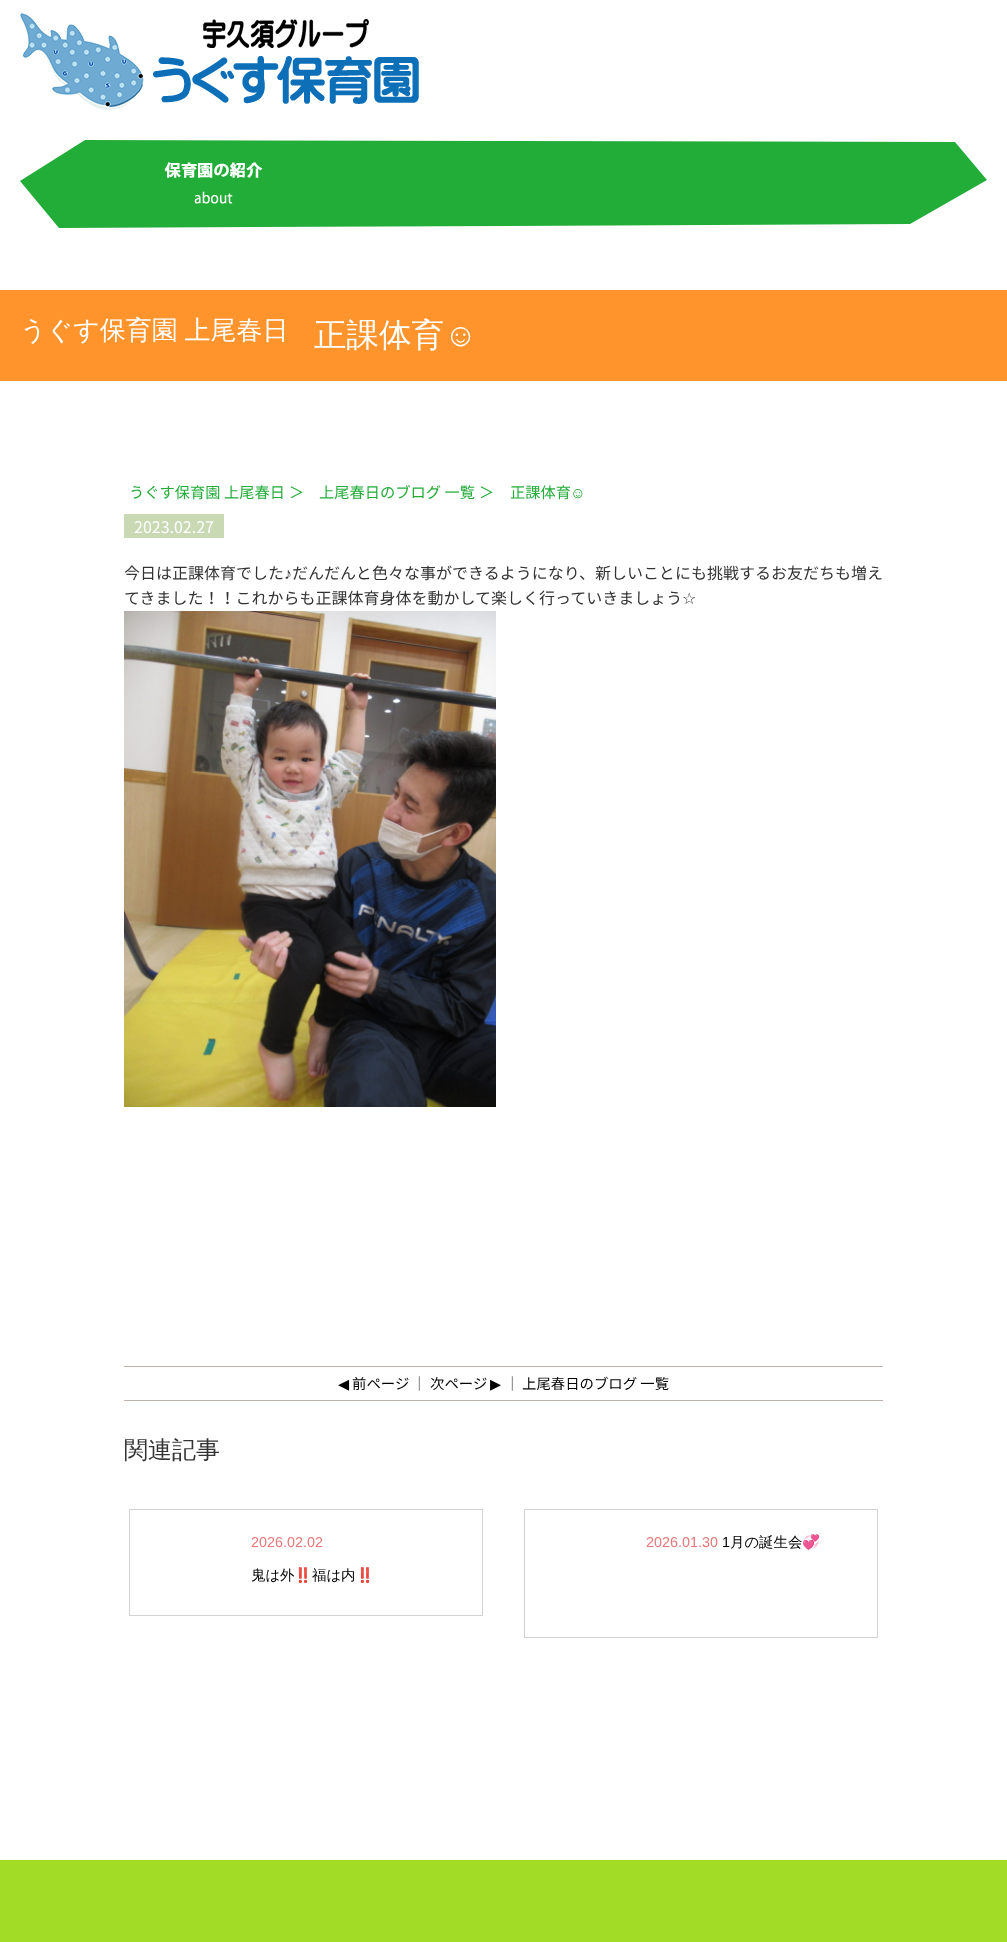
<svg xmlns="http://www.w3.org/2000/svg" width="1007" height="1942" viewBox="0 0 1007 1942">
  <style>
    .t1 { font: 500 26px WenQuanYi Zen Hei; fill: #fff; }
    .t2 { font: 500 32.5px WenQuanYi Zen Hei; fill: #fff; }
    .t3 { font: 32.5px Liberation Sans; fill: #fff; }
    .t4 { font: 15.25px Noto Sans JP; fill: #22ac38; }
    .t5 { font: 15.25px Liberation Sans; fill: #22ac38; }
    .t6 { font: 16px Noto Sans JP; fill: #fff; }
    .t7 { font: 16px Noto Sans JP; fill: #333; }
    .t8 { font: 16px Liberation Sans; fill: #333; }
    .t9 { font: 16px DejaVu Sans; fill: #333; }
    .t10 { font: 14.4px DejaVu Sans; fill: #000; }
    .t11 { font: 14.4px Noto Sans JP; fill: #000; }
    .t12 { font: 14.4px Noto Sans JP; fill: #333; }
    .t13 { font: 500 24px WenQuanYi Zen Hei; fill: #333; }
    .t14 { font: 14.4px Liberation Sans; fill: #e67878; }
    .t15 { font: 500 14.4px WenQuanYi Zen Hei; fill: #000; }
    .t16 { font: 14.4px Noto Color Emoji; fill: #000; }
    .t17 { font: 14.4px Liberation Sans; fill: #000; }
  </style>
  <rect width="100%" height="100%" fill="#fff"/>
  <image x="20" y="13" width="399" height="97" href="images/1.png"/>
  <path d="M85 140L955 142L987 180L910 224L59 228L20 181Z" fill="#22ac38"/>
  <image x="164" y="162" width="99" height="42" href="images/2.png"/>
  <rect x="0" y="290" width="1007" height="91" fill="#ff942c"/>
  <text x="20" y="339" word-spacing="-1" class="t1">うぐす保育園 上尾春日</text>
  <text x="314" y="346" class="t2">正課体育</text>
  <text x="444" y="346" class="t3">☺</text>
  <text x="129" y="498" class="t4">うぐす保育園 上尾春日</text>
  <text x="289" y="498" class="t4">＞</text>
  <text x="319" y="498" class="t4">上尾春日のブログ 一覧</text>
  <text x="479" y="498" class="t4">＞</text>
  <text x="510" y="498" class="t4">正課体育</text>
  <text x="570" y="498" class="t5">☺</text>
  <rect x="124" y="514" width="100" height="24" fill="#c8d9b4"/>
  <text x="134" y="533" class="t6">2023.02.27</text>
  <text x="124" y="579" class="t7">今日は正課体育でした</text>
  <text x="284" y="579" class="t8">♪</text>
  <text x="292" y="579" class="t7">だんだんと色々な事ができるようになり、新しいことにも挑戦するお友だちも増え</text>
  <text x="124" y="604" class="t7">てきました！！これからも正課体育身体を動かして楽しく行っていきましょう</text>
  <text x="682" y="604" class="t9">☆</text>
  <image x="124" y="611" width="372" height="496" href="images/3.png"/>
  <rect x="124" y="1366" width="759" height="1" fill="#beb1aa"/>
  <rect x="124" y="1400" width="759" height="1" fill="#beb1aa"/>
  <text x="338" y="1389" class="t10">◀</text>
  <text x="352" y="1389" class="t11">前ページ</text>
  <text x="412" y="1389" class="t12">｜</text>
  <text x="430" y="1389" class="t11">次ページ</text>
  <text x="490" y="1389" class="t10">▶</text>
  <text x="505" y="1389" class="t12">｜</text>
  <text x="522" y="1389" class="t11">上尾春日のブログ 一覧</text>
  <text x="124" y="1458" class="t13">関連記事</text>
  <rect x="129.5" y="1509.5" width="353" height="106" fill="none" stroke="#d2d2d2"/>
  <text x="251" y="1547" class="t14">2026.02.02</text>
  <text x="251" y="1580" class="t15">鬼は外</text>
  <text x="294" y="1580" class="t16">‼️</text>
  <text x="312" y="1580" class="t15">福は内</text>
  <text x="356" y="1580" class="t16">‼️</text>
  <rect x="524.5" y="1509.5" width="353" height="128" fill="none" stroke="#d2d2d2"/>
  <text x="646" y="1547" class="t14">2026.01.30</text>
  <text x="722" y="1547" class="t17">1</text>
  <text x="730" y="1547" class="t15">月の誕生会</text>
  <text x="802" y="1547" class="t16">💞</text>
  <rect x="0" y="1860" width="1007" height="82" fill="#a2dc26"/>
</svg>
